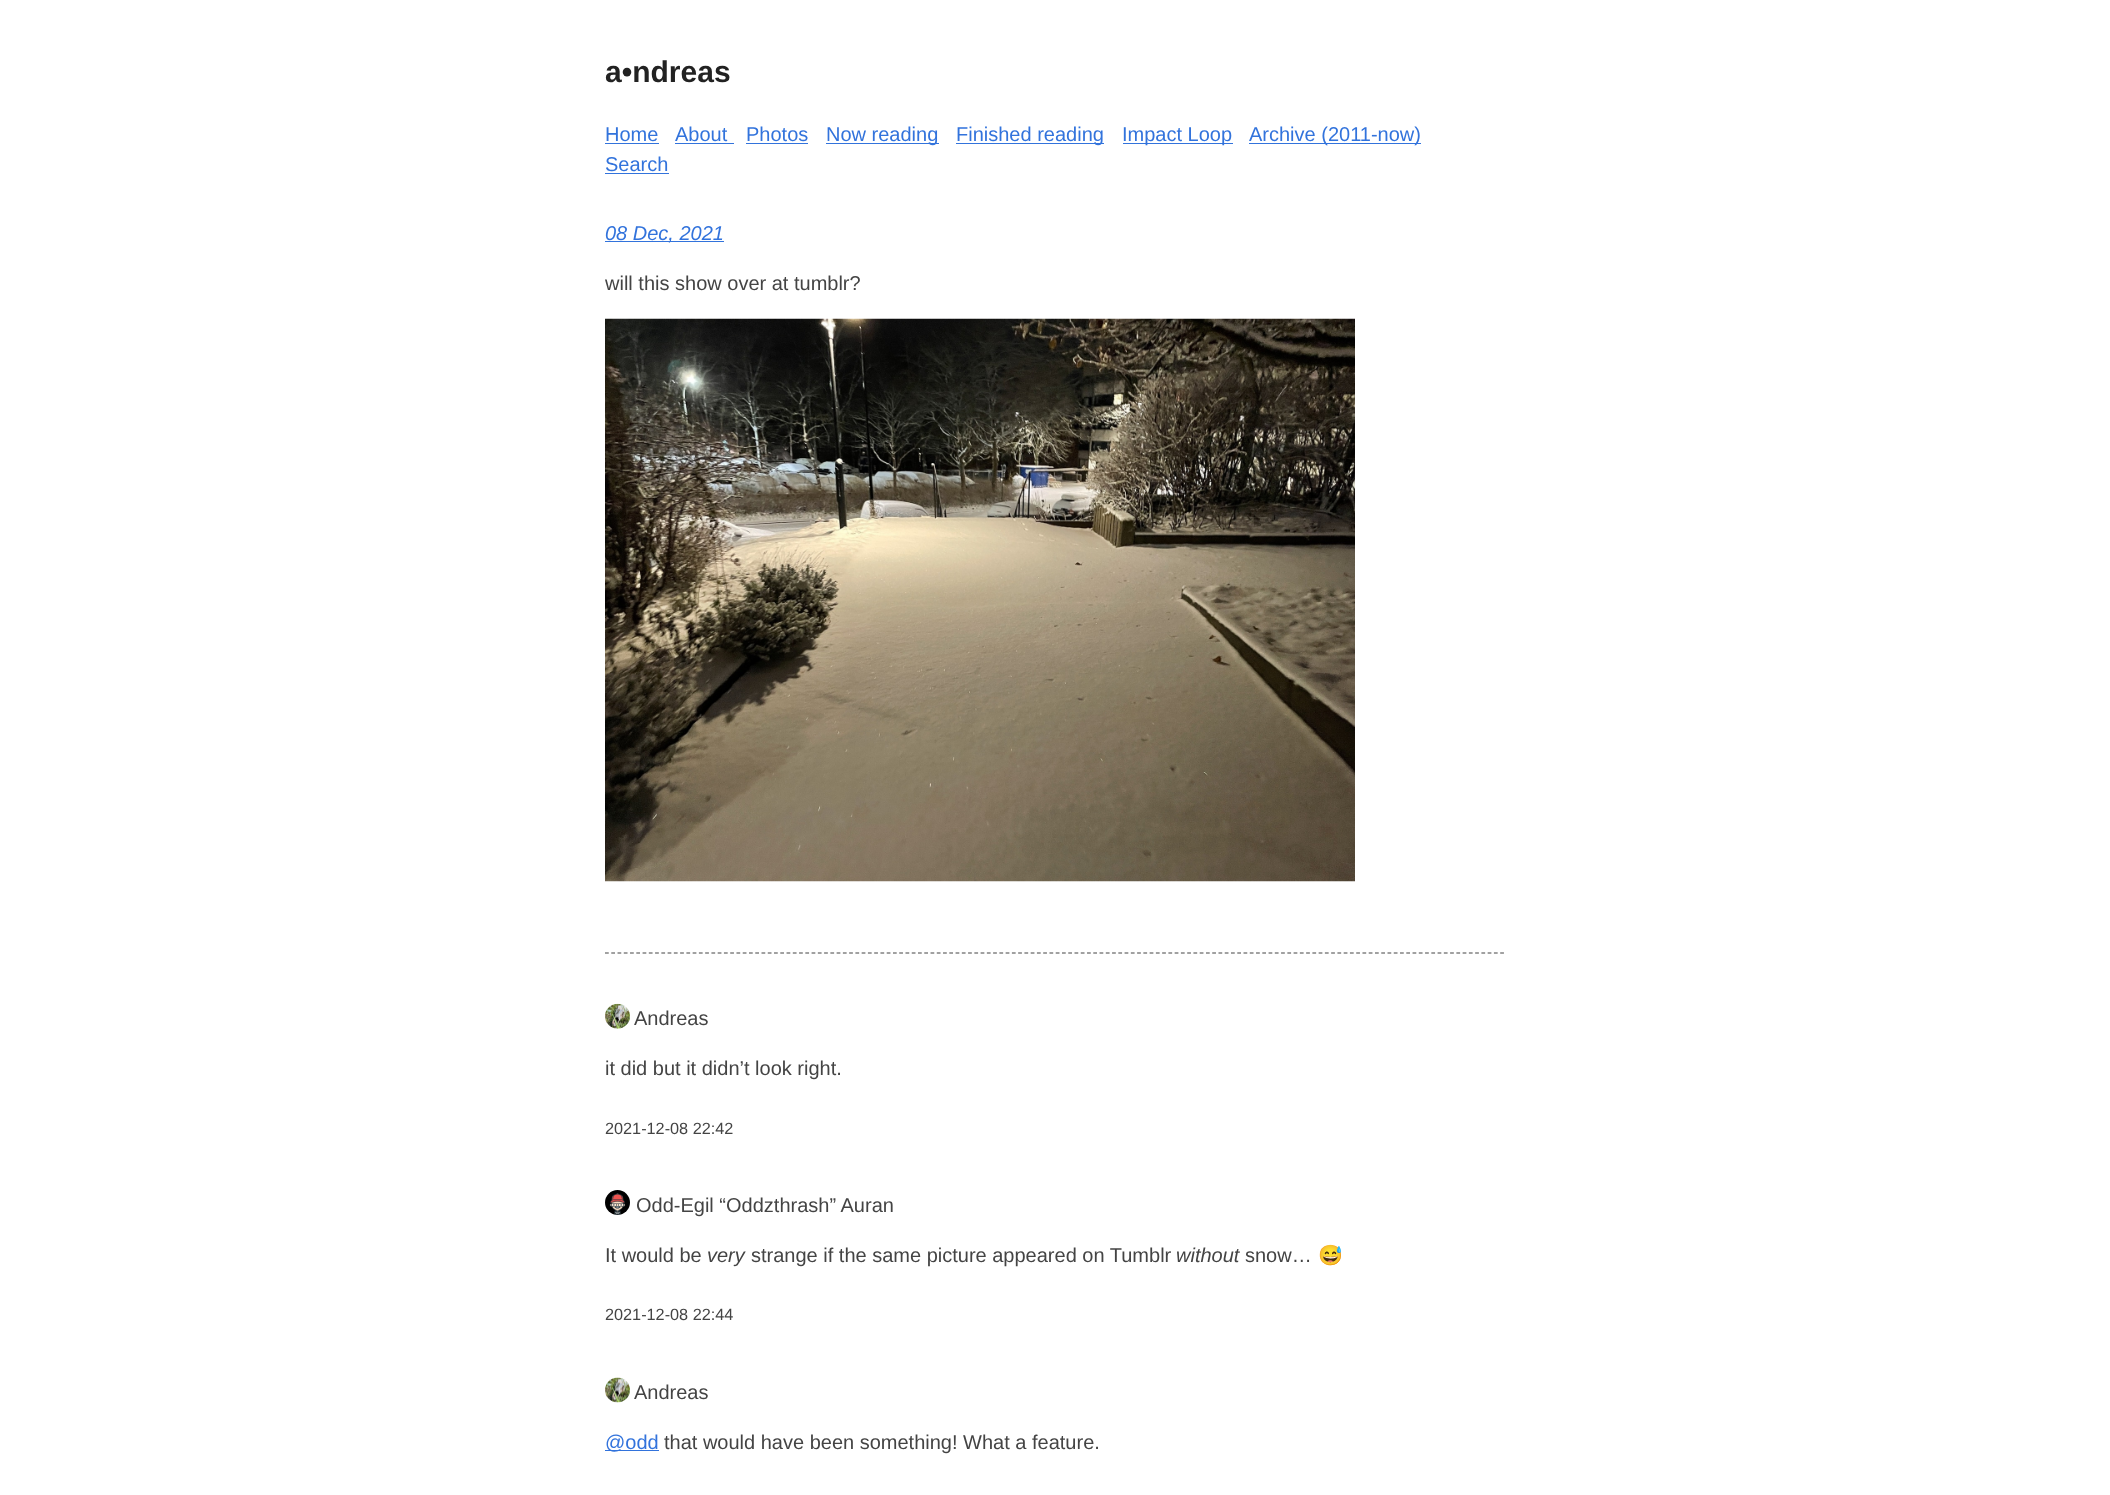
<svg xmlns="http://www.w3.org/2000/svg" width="2110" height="1495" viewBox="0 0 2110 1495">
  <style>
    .t1 { font: bold 30px Liberation Sans; fill: #222; }
    .t2 { font: 20px Liberation Sans; fill: #3273dc; }
    .t3 { font: italic 20px Liberation Sans; fill: #3273dc; }
    .t4 { font: 20px Liberation Sans; fill: #444; }
    .t5 { font: 16.25px Liberation Sans; fill: #444; }
    .t6 { font: italic 20px Liberation Sans; fill: #444; }
    .t7 { font: 20px Noto Color Emoji; fill: #444; }
  </style>
  <rect width="100%" height="100%" fill="#fff"/>
  <text x="605" y="82" class="t1">a•ndreas</text>
  <text x="605" y="141" class="t2">Home</text>
  <rect x="605" y="143" width="54" height="1" fill="#3273dc"/>
  <text x="675" y="141" class="t2">About</text>
  <rect x="675" y="143" width="59" height="1" fill="#3273dc"/>
  <text x="746" y="141" class="t2">Photos</text>
  <rect x="746" y="143" width="62" height="1" fill="#3273dc"/>
  <rect x="826" y="143" width="113" height="1" fill="#3273dc"/>
  <text x="826" y="141" class="t2">Now reading</text>
  <rect x="956" y="143" width="148" height="1" fill="#3273dc"/>
  <text x="956" y="141" class="t2">Finished reading</text>
  <rect x="1123" y="143" width="110" height="1" fill="#3273dc"/>
  <text x="1122" y="141" class="t2">Impact Loop</text>
  <rect x="1249" y="143" width="172" height="1" fill="#3273dc"/>
  <text x="1249" y="141" class="t2">Archive (2011-now)</text>
  <text x="605" y="171" class="t2">Search</text>
  <rect x="605" y="173" width="64" height="1" fill="#3273dc"/>
  <rect x="605" y="241" width="119" height="1" fill="#3273dc"/>
  <text x="605" y="240" class="t3">08 Dec, 2021</text>
  <text x="605" y="290" class="t4">will this show over at tumblr?</text>
  <image x="605" y="318" width="750" height="564" href="images/1.png"/>
  <path d="M605 953H1505" fill="none" stroke="#444" stroke-width="1.2" stroke-dasharray="3.75 2.51"/>
  <image x="605" y="1003" width="25" height="26" href="images/2.png"/>
  <text x="634" y="1025" class="t4">Andreas</text>
  <text x="605" y="1075" class="t4">it did but it didn’t look right.</text>
  <text x="605" y="1134" class="t5">2021-12-08 22:42</text>
  <image x="605" y="1190" width="25" height="25" href="images/3.png"/>
  <text x="636" y="1212" class="t4">Odd-Egil “Oddzthrash” Auran</text>
  <text x="605" y="1262" class="t4">It would be</text>
  <text x="707" y="1262" class="t6">very</text>
  <text x="751" y="1262" class="t4">strange if the same picture appeared on Tumblr</text>
  <text x="1176" y="1262" class="t6">without</text>
  <text x="1245" y="1262" class="t4">snow…</text>
  <text x="1318" y="1262" class="t7">😅</text>
  <text x="605" y="1320" class="t5">2021-12-08 22:44</text>
  <image x="605" y="1377" width="25" height="26" href="images/4.png"/>
  <text x="634" y="1399" class="t4">Andreas</text>
  <rect x="605" y="1450" width="54" height="1" fill="#3273dc"/>
  <text x="605" y="1449" class="t2">@odd</text>
  <text x="664" y="1449" class="t4">that would have been something! What a feature.</text>
</svg>
